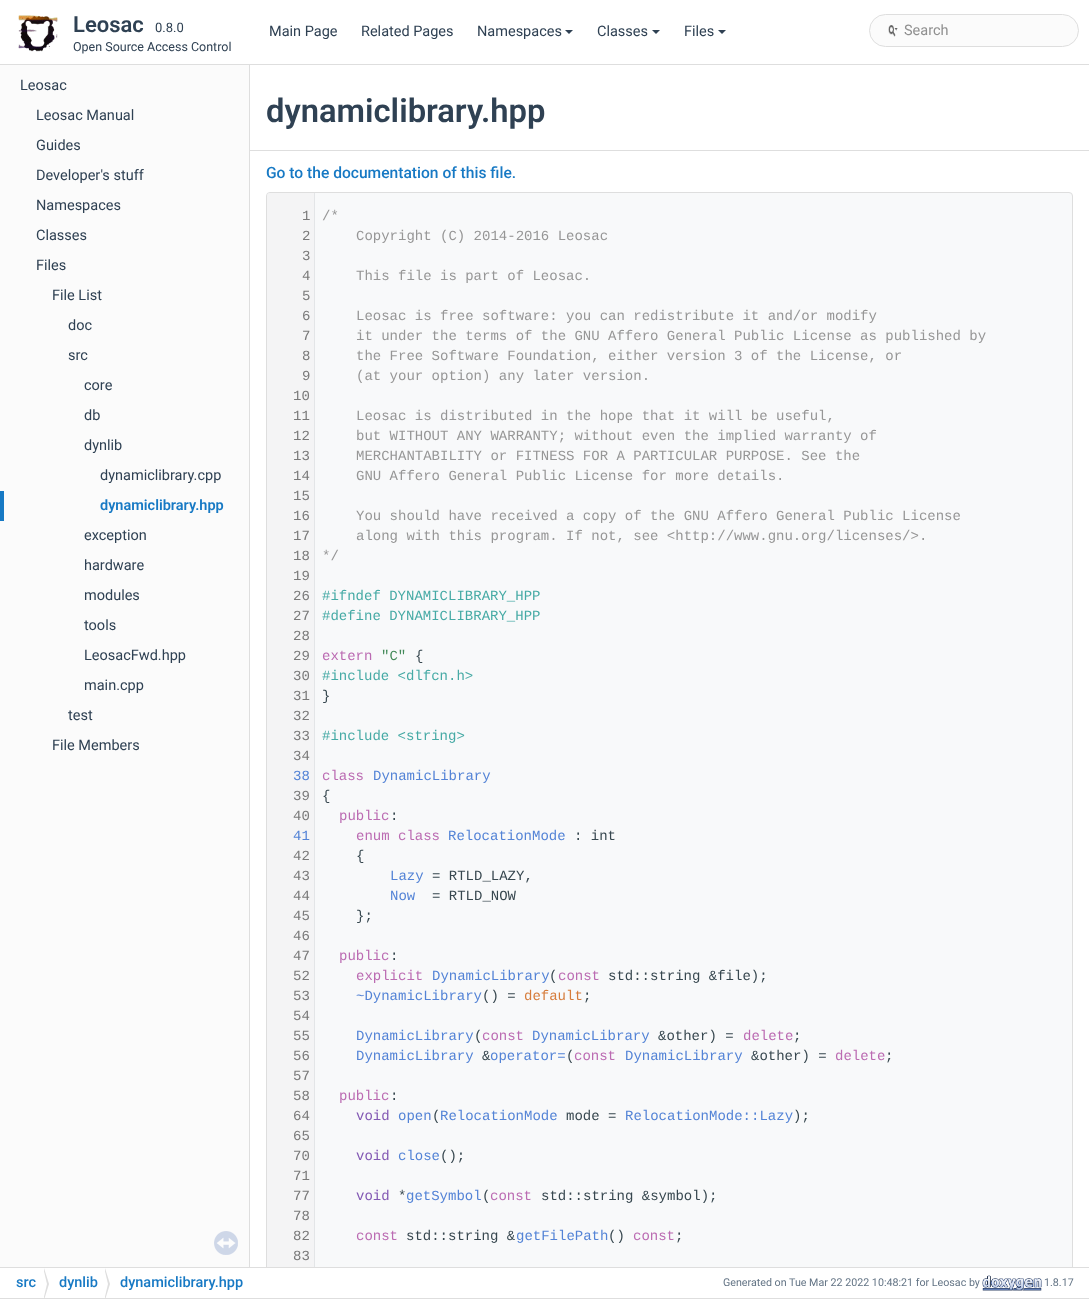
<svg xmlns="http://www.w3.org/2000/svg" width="1089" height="1299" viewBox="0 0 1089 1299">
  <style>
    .t1 { font: 600 22px Roboto; fill: #2f4153; }
    .t2 { font: 13px Roboto; fill: #2f4153; }
    .t3 { font: 12.5px Roboto; fill: #2f4153; }
    .t4 { font: 14.5px Roboto; fill: #2f4153; }
    .t5 { font: 14.5px Roboto; fill: #909090; }
    .t6 { font: 600 14.5px Roboto; fill: #1779c4; }
    .t7 { font: 600 32.75px Roboto; fill: #2f4153; }
    .t8 { font: 500 15.6px Roboto; fill: #1779c4; }
    .t9 { font: 14px Liberation Mono; fill: #797979; }
    .t10 { font: 14px Liberation Mono; fill: #969696; }
    .t11 { font: 14px Liberation Mono; fill: #46aaa5; }
    .t12 { font: 14px Liberation Mono; fill: #bb6bb2; }
    .t13 { font: 14px Liberation Mono; fill: #438a59; }
    .t14 { font: 14px Liberation Mono; fill: #37474f; }
    .t15 { font: 14px Liberation Mono; fill: #5383d6; }
    .t16 { font: 14px Liberation Mono; fill: #d67c3b; }
    .t17 { font: 14px Liberation Mono; fill: #8258b3; }
    .t18 { font: 500 14.5px Roboto; fill: #1779c4; }
    .t19 { font: 10.7px Roboto; fill: #637485; }
  </style>
  <defs>
    <clipPath id="clip1"><rect x="250" y="65" width="839" height="1202"/></clipPath>
    <clipPath id="clip2"><rect x="0" y="1268" width="1089" height="30"/></clipPath>
  </defs>
  <rect width="100%" height="100%" fill="#fff"/>
  <rect x="0" y="64" width="1089" height="1" fill="#dedede"/>
  <image x="18" y="15" width="40" height="37" href="images/1.png"/>
  <text x="73" y="32" class="t1">Leosac</text>
  <text x="155" y="32" class="t2">0.8.0</text>
  <text x="73" y="51" class="t3">Open Source Access Control</text>
  <text x="269" y="36" class="t4">Main Page</text>
  <text x="361" y="36" class="t4">Related Pages</text>
  <text x="477" y="36" class="t4">Namespaces</text>
  <path d="M565 30H573L569 34Z" fill="#2f4153"/>
  <text x="597" y="36" class="t4">Classes</text>
  <path d="M652 30H660L656 34Z" fill="#2f4153"/>
  <text x="684" y="36" class="t4">Files</text>
  <path d="M718 30H726L722 34Z" fill="#2f4153"/>
  <rect x="869.5" y="14.5" width="209" height="32" rx="16" fill="#fbfbfb" stroke="#dedede"/>
  <image x="888" y="25" width="10" height="12" href="images/2.png"/>
  <text x="904" y="35" class="t5">Search</text>
  <rect x="0" y="65" width="249" height="1202" fill="#fbfbfb"/>
  <text x="20" y="90" class="t4">Leosac</text>
  <text x="36" y="120" class="t4">Leosac Manual</text>
  <text x="36" y="150" class="t4">Guides</text>
  <text x="36" y="180" class="t4">Developer's stuff</text>
  <text x="36" y="210" class="t4">Namespaces</text>
  <text x="36" y="240" class="t4">Classes</text>
  <text x="36" y="270" class="t4">Files</text>
  <text x="52" y="300" class="t4">File List</text>
  <text x="68" y="330" class="t4">doc</text>
  <text x="68" y="360" class="t4">src</text>
  <text x="84" y="390" class="t4">core</text>
  <text x="84" y="420" class="t4">db</text>
  <text x="84" y="450" class="t4">dynlib</text>
  <text x="100" y="480" class="t4">dynamiclibrary.cpp</text>
  <rect x="0" y="491" width="4" height="30" fill="#1779c4"/>
  <text x="100" y="510" class="t6">dynamiclibrary.hpp</text>
  <text x="84" y="540" class="t4">exception</text>
  <text x="84" y="570" class="t4">hardware</text>
  <text x="84" y="600" class="t4">modules</text>
  <text x="84" y="630" class="t4">tools</text>
  <text x="84" y="660" class="t4">LeosacFwd.hpp</text>
  <text x="84" y="690" class="t4">main.cpp</text>
  <text x="68" y="720" class="t4">test</text>
  <text x="52" y="750" class="t4">File Members</text>
  <image x="214" y="1231" width="24" height="24" href="images/3.png"/>
  <rect x="249" y="65" width="1" height="1202" fill="#dedede"/>
  <rect x="250" y="150" width="839" height="1" fill="#dedede"/>
  <text x="266" y="122" class="t7">dynamiclibrary.hpp</text>
  <text x="266" y="178" class="t8">Go to the documentation of this file.</text>
  <path d="M270 192H1069C1071 192 1073 194 1073 196V1267H266V196C266 194 268 192 270 192Z" fill="#f8f9fa"/>
  <g clip-path="url(#clip1)">
    <rect x="266.5" y="192.5" width="806" height="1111" rx="3.5" fill="none" stroke="#dedede"/>
    <path d="M270 193C268 193 267 194 267 196V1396C267 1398 268 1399 270 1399H315V193ZM283 206V226H314V206Z" fill="#e3e5e7" fill-rule="evenodd"/>
    <path d="M270 193C268 193 267 194 267 196V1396C267 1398 268 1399 270 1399H314V226H283V206H314V193Z" fill="#f4f4f5"/>
  </g>
  <rect x="283" y="206" width="31" height="20" fill="#f4f4f5"/>
  <text x="302" y="220" class="t9">1</text>
  <text x="322" y="220" class="t10">/*</text>
  <text x="302" y="240" class="t9">2</text>
  <text x="356" y="240" class="t10">Copyright (C) 2014-2016 Leosac</text>
  <text x="302" y="260" class="t9">3</text>
  <text x="302" y="280" class="t9">4</text>
  <text x="356" y="280" class="t10">This file is part of Leosac.</text>
  <text x="302" y="300" class="t9">5</text>
  <text x="302" y="320" class="t9">6</text>
  <text x="356" y="320" class="t10">Leosac is free software: you can redistribute it and/or modify</text>
  <text x="302" y="340" class="t9">7</text>
  <text x="356" y="340" class="t10">it under the terms of the GNU Affero General Public License as published by</text>
  <text x="302" y="360" class="t9">8</text>
  <text x="356" y="360" class="t10">the Free Software Foundation, either version 3 of the License, or</text>
  <text x="302" y="380" class="t9">9</text>
  <text x="356" y="380" class="t10">(at your option) any later version.</text>
  <text x="293" y="400" class="t9">10</text>
  <text x="293" y="420" class="t9">11</text>
  <text x="356" y="420" class="t10">Leosac is distributed in the hope that it will be useful,</text>
  <text x="293" y="440" class="t9">12</text>
  <text x="356" y="440" class="t10">but WITHOUT ANY WARRANTY; without even the implied warranty of</text>
  <text x="293" y="460" class="t9">13</text>
  <text x="356" y="460" class="t10">MERCHANTABILITY or FITNESS FOR A PARTICULAR PURPOSE. See the</text>
  <text x="293" y="480" class="t9">14</text>
  <text x="356" y="480" class="t10">GNU Affero General Public License for more details.</text>
  <text x="293" y="500" class="t9">15</text>
  <text x="293" y="520" class="t9">16</text>
  <text x="356" y="520" class="t10">You should have received a copy of the GNU Affero General Public License</text>
  <text x="293" y="540" class="t9">17</text>
  <text x="356" y="540" class="t10">along with this program. If not, see &lt;http://www.gnu.org/licenses/&gt;.</text>
  <text x="293" y="560" class="t9">18</text>
  <text x="322" y="560" class="t10">*/</text>
  <text x="293" y="580" class="t9">19</text>
  <text x="293" y="600" class="t9">26</text>
  <text x="322" y="600" class="t11">#ifndef DYNAMICLIBRARY_HPP</text>
  <text x="293" y="620" class="t9">27</text>
  <text x="322" y="620" class="t11">#define DYNAMICLIBRARY_HPP</text>
  <text x="293" y="640" class="t9">28</text>
  <text x="293" y="660" class="t9">29</text>
  <text x="322" y="660" class="t12">extern</text>
  <text x="381" y="660" class="t13">"C"</text>
  <text x="415" y="660" class="t14">{</text>
  <text x="293" y="680" class="t9">30</text>
  <text x="322" y="680" class="t11">#include &lt;dlfcn.h&gt;</text>
  <text x="293" y="700" class="t9">31</text>
  <text x="322" y="700" class="t14">}</text>
  <text x="293" y="720" class="t9">32</text>
  <text x="293" y="740" class="t9">33</text>
  <text x="322" y="740" class="t11">#include &lt;string&gt;</text>
  <text x="293" y="760" class="t9">34</text>
  <text x="293" y="780" class="t15">38</text>
  <text x="322" y="780" class="t12">class</text>
  <text x="373" y="780" class="t15">DynamicLibrary</text>
  <text x="293" y="800" class="t9">39</text>
  <text x="322" y="800" class="t14">{</text>
  <text x="293" y="820" class="t9">40</text>
  <text x="339" y="820" class="t12">public</text>
  <text x="390" y="820" class="t14">:</text>
  <text x="293" y="840" class="t15">41</text>
  <text x="356" y="840" class="t12">enum class</text>
  <text x="448" y="840" class="t15">RelocationMode</text>
  <text x="574" y="840" class="t14">: int</text>
  <text x="293" y="860" class="t9">42</text>
  <text x="356" y="860" class="t14">{</text>
  <text x="293" y="880" class="t9">43</text>
  <text x="390" y="880" class="t15">Lazy</text>
  <text x="432" y="880" class="t14">= RTLD_LAZY,</text>
  <text x="293" y="900" class="t9">44</text>
  <text x="390" y="900" class="t15">Now</text>
  <text x="432" y="900" class="t14">= RTLD_NOW</text>
  <text x="293" y="920" class="t9">45</text>
  <text x="356" y="920" class="t14">};</text>
  <text x="293" y="940" class="t9">46</text>
  <text x="293" y="960" class="t9">47</text>
  <text x="339" y="960" class="t12">public</text>
  <text x="390" y="960" class="t14">:</text>
  <text x="293" y="980" class="t9">52</text>
  <text x="356" y="980" class="t12">explicit</text>
  <text x="432" y="980" class="t15">DynamicLibrary</text>
  <text x="549" y="980" class="t14">(</text>
  <text x="558" y="980" class="t12">const</text>
  <text x="608" y="980" class="t14">std::string &amp;file);</text>
  <text x="293" y="1000" class="t9">53</text>
  <text x="356" y="1000" class="t15">~DynamicLibrary</text>
  <text x="482" y="1000" class="t14">() =</text>
  <text x="524" y="1000" class="t16">default</text>
  <text x="583" y="1000" class="t14">;</text>
  <text x="293" y="1020" class="t9">54</text>
  <text x="293" y="1040" class="t9">55</text>
  <text x="356" y="1040" class="t15">DynamicLibrary</text>
  <text x="474" y="1040" class="t14">(</text>
  <text x="482" y="1040" class="t12">const</text>
  <text x="532" y="1040" class="t15">DynamicLibrary</text>
  <text x="658" y="1040" class="t14">&amp;other) =</text>
  <text x="743" y="1040" class="t12">delete</text>
  <text x="793" y="1040" class="t14">;</text>
  <text x="293" y="1060" class="t9">56</text>
  <text x="356" y="1060" class="t15">DynamicLibrary</text>
  <text x="482" y="1060" class="t14">&amp;</text>
  <text x="490" y="1060" class="t15">operator=</text>
  <text x="566" y="1060" class="t14">(</text>
  <text x="574" y="1060" class="t12">const</text>
  <text x="625" y="1060" class="t15">DynamicLibrary</text>
  <text x="751" y="1060" class="t14">&amp;other) =</text>
  <text x="835" y="1060" class="t12">delete</text>
  <text x="885" y="1060" class="t14">;</text>
  <text x="293" y="1080" class="t9">57</text>
  <text x="293" y="1100" class="t9">58</text>
  <text x="339" y="1100" class="t12">public</text>
  <text x="390" y="1100" class="t14">:</text>
  <text x="356" y="1120" class="t17">void</text>
  <text x="398" y="1120" class="t15">open RelocationMode</text>
  <text x="293" y="1120" class="t9">64</text>
  <text x="432" y="1120" class="t14">(</text>
  <text x="566" y="1120" class="t14">mode =</text>
  <text x="625" y="1120" class="t15">RelocationMode::Lazy</text>
  <text x="793" y="1120" class="t14">);</text>
  <text x="293" y="1140" class="t9">65</text>
  <text x="293" y="1160" class="t9">70</text>
  <text x="356" y="1160" class="t17">void</text>
  <text x="398" y="1160" class="t15">close</text>
  <text x="440" y="1160" class="t14">();</text>
  <text x="293" y="1180" class="t9">71</text>
  <text x="293" y="1200" class="t9">77</text>
  <text x="356" y="1200" class="t17">void</text>
  <text x="398" y="1200" class="t14">*</text>
  <text x="406" y="1200" class="t15">getSymbol</text>
  <text x="482" y="1200" class="t14">(</text>
  <text x="490" y="1200" class="t12">const</text>
  <text x="541" y="1200" class="t14">std::string &amp;symbol);</text>
  <text x="293" y="1220" class="t9">78</text>
  <text x="293" y="1240" class="t9">82</text>
  <text x="356" y="1240" class="t12">const</text>
  <text x="406" y="1240" class="t14">std::string &amp;</text>
  <text x="516" y="1240" class="t15">getFilePath</text>
  <text x="608" y="1240" class="t14">()</text>
  <text x="633" y="1240" class="t12">const</text>
  <text x="675" y="1240" class="t14">;</text>
  <text x="293" y="1260" class="t9">83</text>
  <rect x="0" y="1267" width="1089" height="1" fill="#dedede"/>
  <rect x="0" y="1298" width="1089" height="1" fill="#dedede"/>
  <text x="16" y="1287" class="t18">src</text>
  <path d="M44 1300V1268L49 1284Z" fill="#dedede"/>
  <g clip-path="url(#clip2)">
    <path d="M42 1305V1263L47 1284Z" fill="#fff"/>
  </g>
  <text x="59" y="1287" class="t18">dynlib</text>
  <path d="M105 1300V1268L110 1284Z" fill="#dedede"/>
  <g clip-path="url(#clip2)">
    <path d="M103 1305V1263L108 1284Z" fill="#fff"/>
  </g>
  <text x="120" y="1287" class="t18">dynamiclibrary.hpp</text>
  <text x="723" y="1286" class="t19">Generated on Tue Mar 22 2022 10:48:21 for Leosac by</text>
  <image x="982" y="1275" width="60" height="16" href="images/4.png"/>
  <text x="1044" y="1286" class="t19">1.8.17</text>
</svg>
